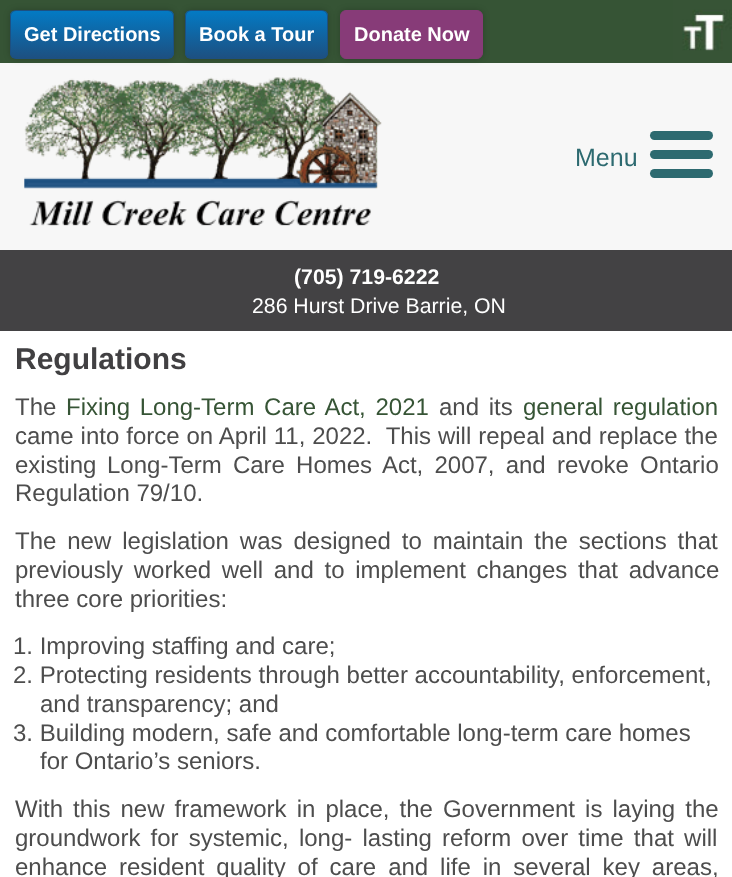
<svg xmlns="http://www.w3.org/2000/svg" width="732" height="877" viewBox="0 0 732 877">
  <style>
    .t1 { font: bold 20px Liberation Sans; fill: #fff; }
    .t2 { font: bold 21.25px Liberation Sans; fill: #fff; }
    .t3 { font: 21.25px Liberation Sans; fill: #fff; }
    .t4 { font: 25px Liberation Sans; fill: #2d6a70; }
    .t5 { font: bold 30px Liberation Sans; fill: #414042; }
    .t6 { font: 24px Liberation Sans; fill: #4d4d4d; }
    .t7 { font: 24px Liberation Sans; fill: #365435; }
  </style>
  <defs>
    <clipPath id="clip1"><rect x="10" y="10" width="164" height="49" rx="6"/></clipPath>
    <linearGradient id="g1" gradientUnits="userSpaceOnUse" x1="92" y1="11" x2="92" y2="58"><stop offset="0" stop-color="#037ac4"/><stop offset="1" stop-color="#1d5081"/></linearGradient>
    <clipPath id="clip2"><rect x="185" y="10" width="143" height="49" rx="6"/></clipPath>
    <linearGradient id="g2" gradientUnits="userSpaceOnUse" x1="256" y1="11" x2="256" y2="58"><stop offset="0" stop-color="#037ac4"/><stop offset="1" stop-color="#1d5081"/></linearGradient>
  </defs>
  <rect width="100%" height="100%" fill="#f7f7f7"/>
  <rect x="0" y="0" width="732" height="63" fill="#365435"/>
  <image x="673" y="0" width="59" height="60" href="images/1.png"/>
  <rect x="0" y="250" width="732" height="81" fill="#434244"/>
  <rect x="10" y="10" width="164" height="49" rx="6" fill="#00000033" filter="blur(3px)"/>
  <g clip-path="url(#clip1)">
    <rect x="10" y="11" width="164" height="47" fill="url(#g1)"/>
  </g>
  <rect x="10.5" y="10.5" width="163" height="48" rx="5.5" fill="none" stroke="#1d5081"/>
  <text x="24" y="41" class="t1">Get Directions</text>
  <rect x="185" y="10" width="143" height="49" rx="6" fill="#00000033" filter="blur(3px)"/>
  <g clip-path="url(#clip2)">
    <rect x="185" y="11" width="143" height="47" fill="url(#g2)"/>
  </g>
  <rect x="185.5" y="10.5" width="142" height="48" rx="5.5" fill="none" stroke="#1d5081"/>
  <text x="199" y="41" class="t1">Book a Tour</text>
  <rect x="340" y="10" width="143" height="49" rx="6" fill="#00000033" filter="blur(3px)"/>
  <rect x="340.5" y="10.5" width="142" height="48" rx="5.5" fill="#873b78" stroke="#873b78"/>
  <text x="354" y="41" class="t1">Donate Now</text>
  <text x="294" y="284" class="t2">(705) 719-6222</text>
  <text x="252" y="313" class="t3">286 Hurst Drive Barrie, ON</text>
  <image x="24" y="77" width="358" height="149" href="images/2.png"/>
  <text x="575" y="166" class="t4">Menu</text>
  <rect x="650" y="131" width="63" height="9" rx="4.5" fill="#2d6a70"/>
  <rect x="650" y="150" width="63" height="9" rx="4.5" fill="#2d6a70"/>
  <rect x="650" y="169" width="63" height="9" rx="4.5" fill="#2d6a70"/>
  <rect x="0" y="331" width="732" height="546" fill="#fff"/>
  <text x="15" y="369" class="t5">Regulations</text>
  <text x="15" y="415" class="t6">The</text>
  <text x="66" y="415" word-spacing="3" class="t7">Fixing Long-Term Care Act, 2021</text>
  <text x="439" y="415" word-spacing="3" class="t6">and its</text>
  <text x="523" y="415" word-spacing="3" class="t7">general regulation</text>
  <text x="15" y="444" word-spacing="0.25" class="t6" xml:space="preserve">came into force on April 11, 2022.  This will repeal and replace the</text>
  <text x="15" y="473" class="t6">existing</text>
  <text x="107" y="473" word-spacing="4.5" class="t6">Long-Term Care Homes Act, 2007, and revoke Ontario</text>
  <text x="15" y="501" class="t6">Regulation 79/10.</text>
  <text x="15" y="549" word-spacing="4.25" class="t6">The new legislation was designed to maintain the sections that</text>
  <text x="15" y="578" word-spacing="4" class="t6">previously worked well and to implement changes that advance</text>
  <text x="15" y="607" class="t6">three core priorities:</text>
  <text x="13" y="654" class="t6">1. Improving staffing and care;</text>
  <text x="13" y="683" class="t6">2. Protecting residents through better accountability, enforcement,</text>
  <text x="40" y="712" class="t6">and transparency; and</text>
  <text x="13" y="741" class="t6">3. Building modern, safe and comfortable long-term care homes</text>
  <text x="40" y="769" class="t6">for Ontario’s seniors.</text>
  <text x="15" y="817" word-spacing="3.4" class="t6">With this new framework in place, the Government is laying the</text>
  <text x="15" y="846" word-spacing="3.5" class="t6">groundwork for systemic, long- lasting reform over time that will</text>
  <text x="15" y="875" word-spacing="5.25" class="t6">enhance resident quality of care and life in several key areas,</text>
</svg>
